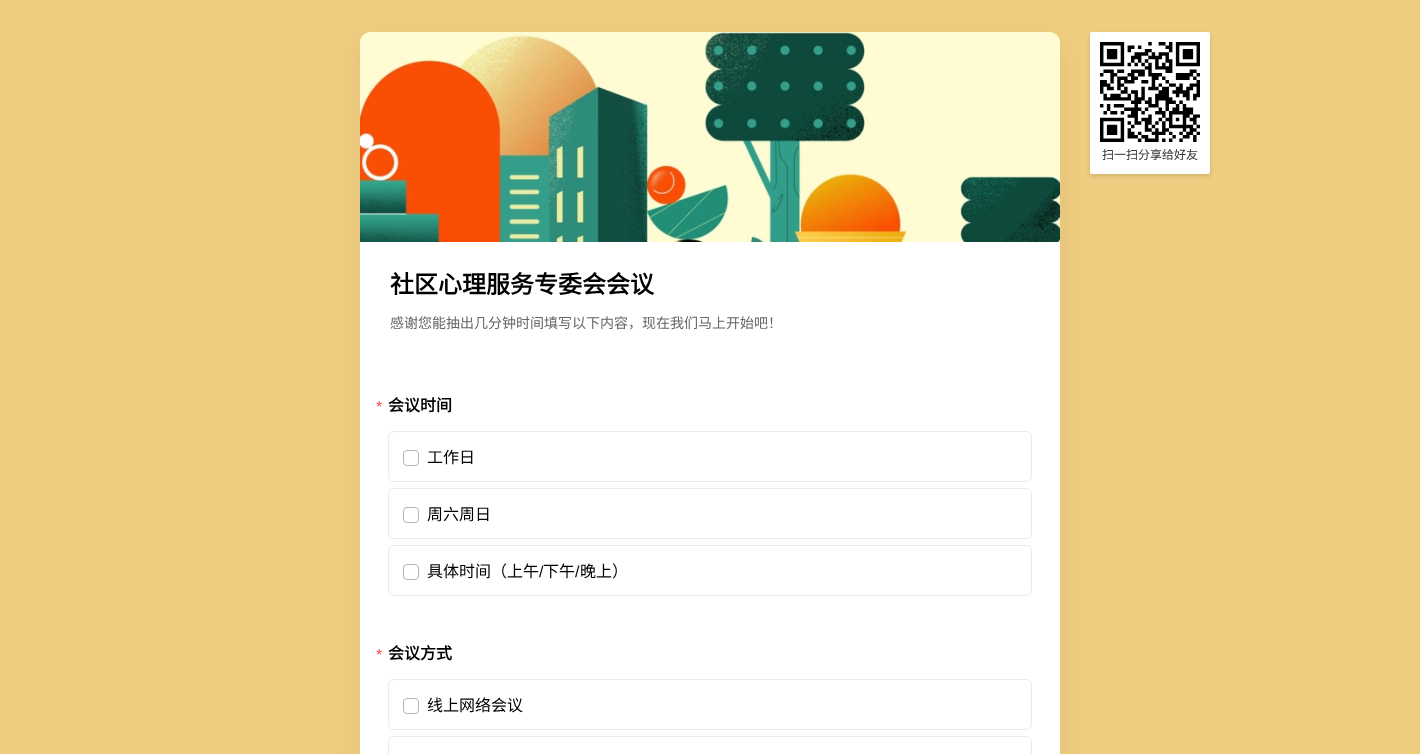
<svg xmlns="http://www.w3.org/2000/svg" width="1420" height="754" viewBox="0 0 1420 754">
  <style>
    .t1 { font: 12px Noto Sans CJK SC; fill: #333; }
    .t2 { font: bold 24px Noto Sans CJK SC; fill: #000; }
    .t3 { font: 14px Noto Sans CJK SC; fill: #666; }
    .t4 { font: 16px Liberation Sans; fill: #ff4545; }
    .t5 { font: bold 16px Noto Sans CJK SC; fill: #000; }
    .t6 { font: 16px Noto Sans CJK SC; fill: #000; }
    .t7 { font: 16px Liberation Sans; fill: #000; }
  </style>
  <rect width="100%" height="100%" fill="#eecd81"/>
  <rect x="360" y="44" width="700" height="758" rx="12" fill="#0000000d" filter="blur(12px)"/>
  <rect x="360" y="32" width="700" height="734" rx="12" fill="#fff"/>
  <image x="360" y="32" width="700" height="210" href="images/1.png"/>
  <rect x="1090" y="34" width="120" height="142" rx="2" fill="#0000001f" filter="blur(2px)"/>
  <rect x="1090" y="32" width="120" height="142" rx="2" fill="#fff"/>
  <image x="1100" y="42" width="100" height="100" href="images/2.png"/>
  <text x="1102" y="159" class="t1">扫一扫分享给好友</text>
  <text x="390" y="293" class="t2">社区心理服务专委会会议</text>
  <text x="390" y="328" class="t3">感谢您能抽出几分钟时间填写以下内容，现在我们马上开始吧！</text>
  <text x="376" y="412" class="t4">*</text>
  <text x="388" y="411" class="t5">会议时间</text>
  <rect x="388.5" y="431.5" width="643" height="50" rx="5.5" fill="none" stroke="#eaeaea"/>
  <rect x="403.5" y="450.5" width="15" height="15" rx="3.5" fill="none" stroke="#b3b3b3"/>
  <text x="427" y="463" class="t6">工作日</text>
  <rect x="388.5" y="488.5" width="643" height="50" rx="5.5" fill="none" stroke="#eaeaea"/>
  <rect x="403.5" y="507.5" width="15" height="15" rx="3.5" fill="none" stroke="#b3b3b3"/>
  <text x="427" y="520" class="t6">周六周日</text>
  <rect x="388.5" y="545.5" width="643" height="50" rx="5.5" fill="none" stroke="#eaeaea"/>
  <rect x="403.5" y="564.5" width="15" height="15" rx="3.5" fill="none" stroke="#b3b3b3"/>
  <text x="427" y="577" class="t6">具体时间（上午</text>
  <text x="539" y="577" class="t7">/</text>
  <text x="543" y="577" class="t6">下午</text>
  <text x="575" y="577" class="t7">/</text>
  <text x="580" y="577" class="t6">晚上）</text>
  <text x="376" y="660" class="t4">*</text>
  <text x="388" y="659" class="t5">会议方式</text>
  <rect x="388.5" y="679.5" width="643" height="50" rx="5.5" fill="none" stroke="#eaeaea"/>
  <rect x="403.5" y="698.5" width="15" height="15" rx="3.5" fill="none" stroke="#b3b3b3"/>
  <text x="427" y="711" class="t6">线上网络会议</text>
  <rect x="388.5" y="736.5" width="643" height="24" rx="5.5" fill="none" stroke="#eaeaea"/>
</svg>
